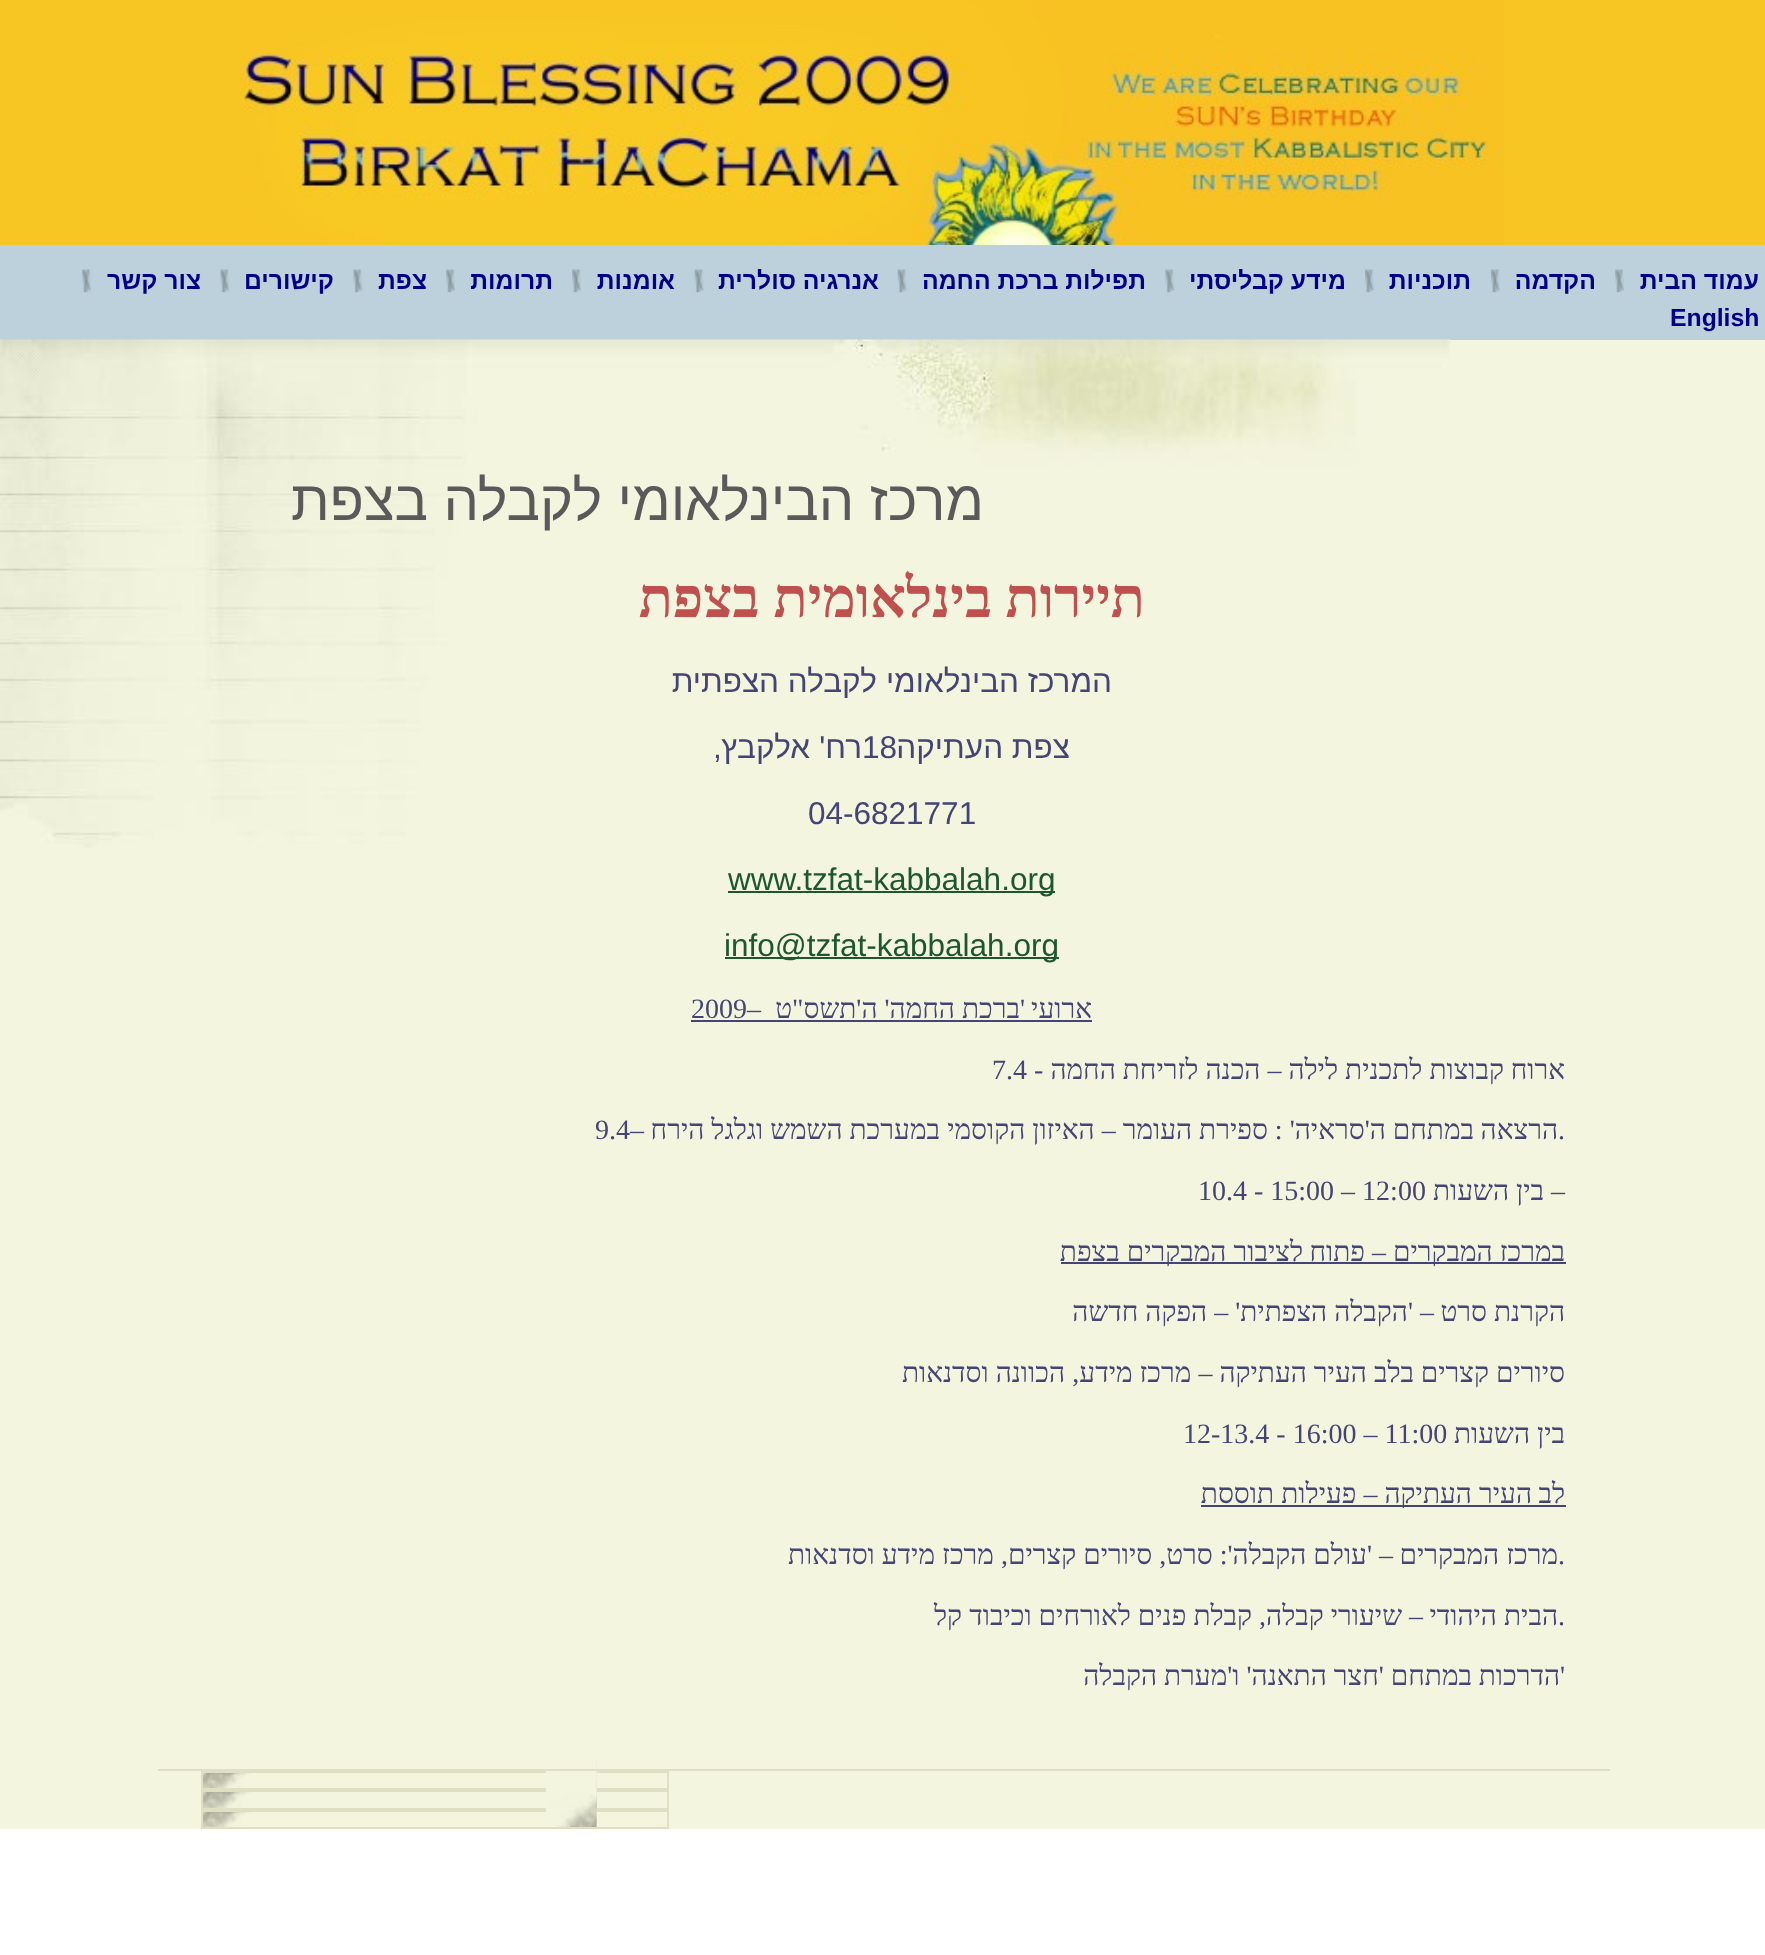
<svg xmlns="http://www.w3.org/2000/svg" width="1765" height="1955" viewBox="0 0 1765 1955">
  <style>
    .t1 { font: bold 24.75px Liberation Sans; direction: rtl; fill: #008; }
    .t2 { font: bold 24.75px Liberation Sans; fill: #008; }
    .t3 { font: 56px Liberation Sans; direction: rtl; fill: #5a5a5a; }
    .t4 { font: bold 56px Liberation Serif; direction: rtl; fill: #c0504d; }
    .t5 { font: 31.5px Liberation Sans; direction: rtl; fill: #447; }
    .t6 { font: 31.5px Liberation Sans; fill: #447; }
    .t7 { font: 31.5px Liberation Sans; fill: #1d5731; }
    .t8 { font: 28px Liberation Serif; direction: rtl; fill: #447; }
    .t9 { font: 28px Liberation Serif; fill: #447; }
  </style>
  <rect width="100%" height="100%" fill="#fff"/>
  <rect x="0" y="0" width="1765" height="245" fill="#f7c623"/>
  <image x="241" y="0" width="1263" height="245" href="images/1.png"/>
  <rect x="0" y="245" width="1765" height="95" fill="#bcd1dc"/>
  <image x="1615" y="269" width="9" height="24" href="images/2.png"/>
  <text x="1759" y="289" class="t1">עמוד הבית</text>
  <image x="1491" y="269" width="9" height="24" href="images/3.png"/>
  <text x="1596" y="289" class="t1">הקדמה</text>
  <image x="1365" y="269" width="9" height="24" href="images/3.png"/>
  <text x="1471" y="289" class="t1">תוכניות</text>
  <image x="1165" y="269" width="10" height="24" href="images/4.png"/>
  <text x="1346" y="289" class="t1">מידע קבליסתי</text>
  <image x="897" y="269" width="10" height="24" href="images/5.png"/>
  <text x="1146" y="289" class="t1">תפילות ברכת החמה</text>
  <image x="694" y="269" width="10" height="24" href="images/6.png"/>
  <text x="879" y="289" class="t1">אנרגיה סולרית</text>
  <image x="572" y="269" width="9" height="24" href="images/7.png"/>
  <text x="675" y="289" class="t1">אומנות</text>
  <image x="446" y="269" width="9" height="24" href="images/7.png"/>
  <text x="553" y="289" class="t1">תרומות</text>
  <image x="353" y="269" width="10" height="24" href="images/8.png"/>
  <text x="427" y="289" class="t1">צפת</text>
  <image x="220" y="269" width="10" height="24" href="images/8.png"/>
  <text x="334" y="289" class="t1">קישורים</text>
  <image x="82" y="269" width="9" height="24" href="images/2.png"/>
  <text x="201" y="289" class="t1">צור קשר</text>
  <text x="1670" y="326" class="t2">English</text>
  <rect x="0" y="340" width="1765" height="1489" fill="#f4f5de"/>
  <image x="0" y="339" width="1451" height="509" href="images/9.png"/>
  <image x="203" y="1773" width="48" height="15" href="images/10.png"/>
  <rect x="202" y="1772" width="466" height="17" fill="none" stroke="#dfe0c3" stroke-width="2"/>
  <image x="546" y="1756" width="51" height="33" href="images/11.png"/>
  <image x="203" y="1792" width="48" height="16" href="images/12.png"/>
  <rect x="202" y="1791" width="466" height="18" fill="none" stroke="#dfe0c3" stroke-width="2"/>
  <image x="546" y="1757" width="51" height="51" href="images/13.png"/>
  <rect x="158" y="1769" width="1452" height="2" fill="#dfe0c3"/>
  <text x="984" y="520" class="t3">מרכז הבינלאומי לקבלה בצפת</text>
  <text x="1145" y="617" class="t4">תיירות</text>
  <text x="992" y="617" class="t4">בינלאומית בצפת</text>
  <text x="1112" y="692" class="t5">המרכז הבינלאומי</text>
  <text x="877" y="692" class="t5">לקבלה הצפתית</text>
  <text x="1070" y="758" class="t5">צפת העתיקה</text>
  <text x="862" y="758" class="t6">18</text>
  <text x="862" y="758" class="t5">רח'</text>
  <text x="810" y="758" class="t5">אלקבץ</text>
  <text x="713" y="758" class="t6">,</text>
  <text x="808" y="824" class="t6">04-6821771</text>
  <rect x="728" y="891" width="327" height="2" fill="#1d5731"/>
  <text x="728" y="890" class="t7">www.tzfat-kabbalah.org</text>
  <rect x="725" y="957" width="334" height="2" fill="#1d5731"/>
  <text x="724" y="956" class="t7">info@tzfat-kabbalah.org</text>
  <text x="1092" y="1018" class="t8">ארועי</text>
  <rect x="747" y="1020" width="345" height="2" fill="#447"/>
  <text x="1025" y="1018" class="t8">'ברכת החמה' ה'תשס"ט</text>
  <text x="691" y="1018" class="t9">2009–</text>
  <rect x="691" y="1020" width="56" height="2" fill="#447"/>
  <text x="1565" y="1079" class="t8">ארוח</text>
  <text x="1504" y="1079" class="t8">קבוצות לתכנית לילה – הכנה לזריחת החמה</text>
  <text x="992" y="1079" class="t9">7.4 -</text>
  <text x="1558" y="1139" class="t9">.</text>
  <text x="1558" y="1139" class="t8">הרצאה</text>
  <text x="1474" y="1139" class="t8">במתחם ה'סראיה' : ספירת העומר – האיזון הקוסמי</text>
  <text x="940" y="1139" class="t8">במערכת השמש וגלגל הירח</text>
  <text x="595" y="1139" class="t9">9.4–</text>
  <text x="1551" y="1200" class="t9">–</text>
  <text x="1544" y="1200" class="t8">בין השעות</text>
  <text x="1198" y="1200" class="t9">10.4 - 15:00 – 12:00</text>
  <rect x="1061" y="1262" width="505" height="2" fill="#447"/>
  <text x="1565" y="1261" class="t8">במרכז המבקרים – פתוח</text>
  <text x="1303" y="1261" class="t8">לציבור המבקרים בצפת</text>
  <text x="1565" y="1321" class="t8">הקרנת סרט</text>
  <text x="1434" y="1321" class="t8">– 'הקבלה הצפתית' – הפקה חדשה</text>
  <text x="1565" y="1382" class="t8">סיורים</text>
  <text x="1489" y="1382" class="t8">קצרים</text>
  <text x="1414" y="1382" class="t8">בלב העיר העתיקה – מרכז מידע,</text>
  <text x="1065" y="1382" class="t8">הכוונה וסדנאות</text>
  <text x="1565" y="1443" class="t8">בין השעות</text>
  <text x="1183" y="1443" class="t9">12-13.4 - 16:00 – 11:00</text>
  <text x="1565" y="1503" class="t8">לב</text>
  <rect x="1201" y="1505" width="365" height="2" fill="#447"/>
  <text x="1532" y="1503" class="t8">העיר העתיקה – פעילות</text>
  <text x="1274" y="1503" class="t8">תוססת</text>
  <text x="1558" y="1564" class="t9">.</text>
  <text x="1558" y="1564" class="t8">מרכז המבקרים</text>
  <text x="1393" y="1564" class="t8">– 'עולם הקבלה': סרט, סיורים קצרים, מרכז</text>
  <text x="935" y="1564" class="t8">מידע וסדנאות</text>
  <text x="1558" y="1625" class="t9">.</text>
  <text x="1558" y="1625" class="t8">הבית היהודי</text>
  <text x="1423" y="1625" class="t8">– שיעורי קבלה, קבלת פנים לאורחים וכיבוד</text>
  <text x="962" y="1625" class="t8">קל</text>
  <text x="1560" y="1685" class="t9">'</text>
  <text x="1560" y="1685" class="t8">הדרכות</text>
  <text x="1472" y="1685" class="t8">במתחם 'חצר התאנה' ו'מערת הקבלה</text>
  <image x="203" y="1812" width="48" height="15" href="images/14.png"/>
  <rect x="202" y="1811" width="466" height="17" fill="none" stroke="#dfe0c3" stroke-width="2"/>
  <image x="546" y="1776" width="51" height="51" href="images/15.png"/>
</svg>
